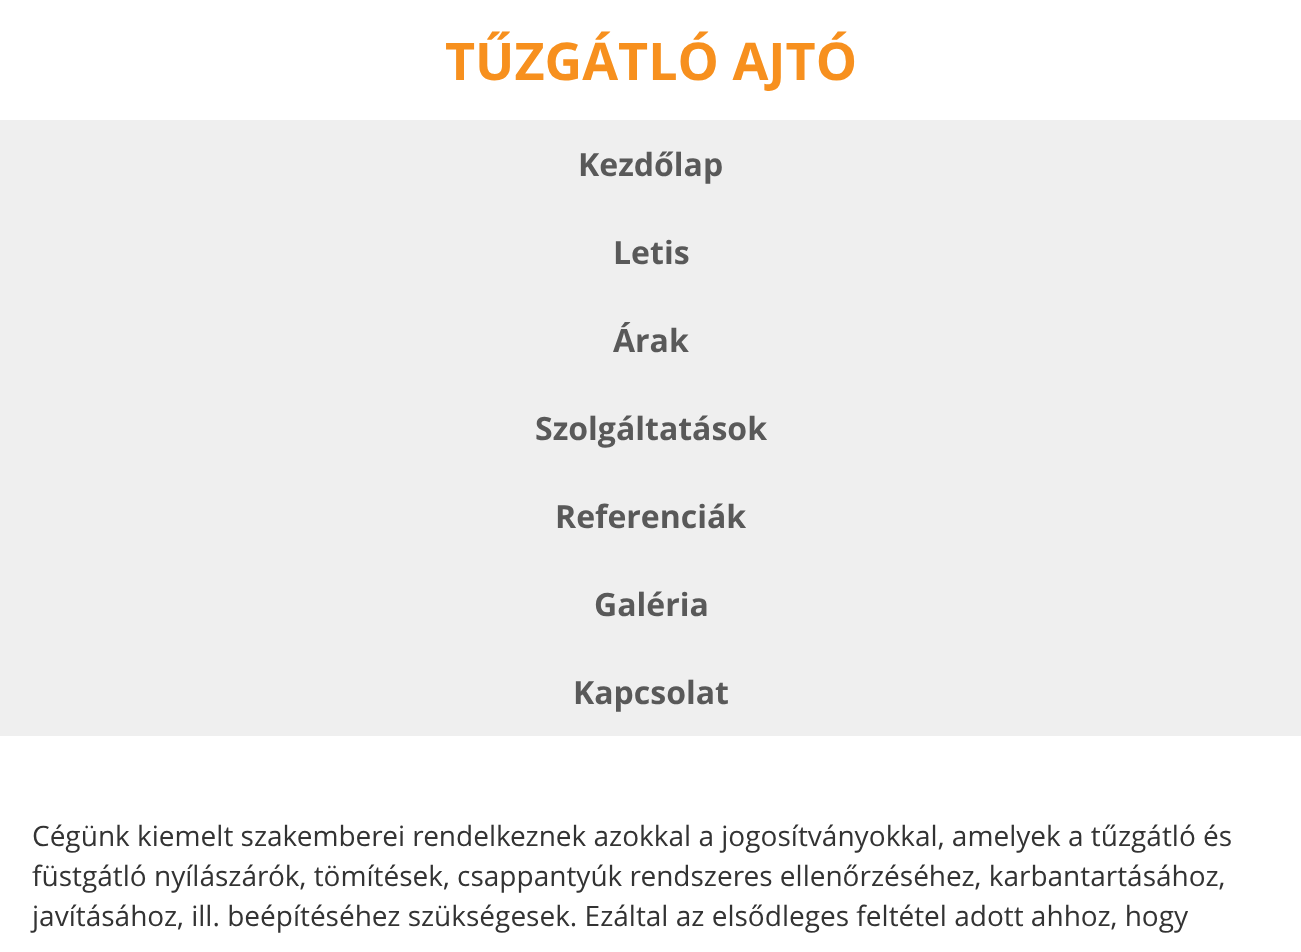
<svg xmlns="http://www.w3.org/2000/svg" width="1301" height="952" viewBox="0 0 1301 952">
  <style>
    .t1 { font: bold 52px Open Sans; fill: #f7901e; }
    .t2 { font: bold 32px Open Sans; fill: #595959; }
    .t3 { font: 28px Open Sans; fill: #333; }
  </style>
  <rect width="100%" height="100%" fill="#fff"/>
  <text x="445" y="80" class="t1">TŰZGÁTLÓ AJTÓ</text>
  <rect x="0" y="120" width="1301" height="616" fill="#efefef"/>
  <text x="578" y="176" class="t2">Kezdőlap</text>
  <text x="613" y="264" class="t2">Letis</text>
  <text x="613" y="352" class="t2">Árak</text>
  <text x="535" y="440" class="t2">Szolgáltatások</text>
  <text x="555" y="528" class="t2">Referenciák</text>
  <text x="594" y="616" class="t2">Galéria</text>
  <text x="573" y="704" class="t2">Kapcsolat</text>
  <text x="32" y="846" class="t3">Cégünk kiemelt szakemberei rendelkeznek azokkal a jogosítványokkal, amelyek a tűzgátló és</text>
  <text x="32" y="886" class="t3">füstgátló nyílászárók, tömítések, csappantyúk rendszeres ellenőrzéséhez, karbantartásához,</text>
  <text x="32" y="926" class="t3">javításához, ill. beépítéséhez szükségesek. Ezáltal az elsődleges feltétel adott ahhoz, hogy</text>
</svg>
